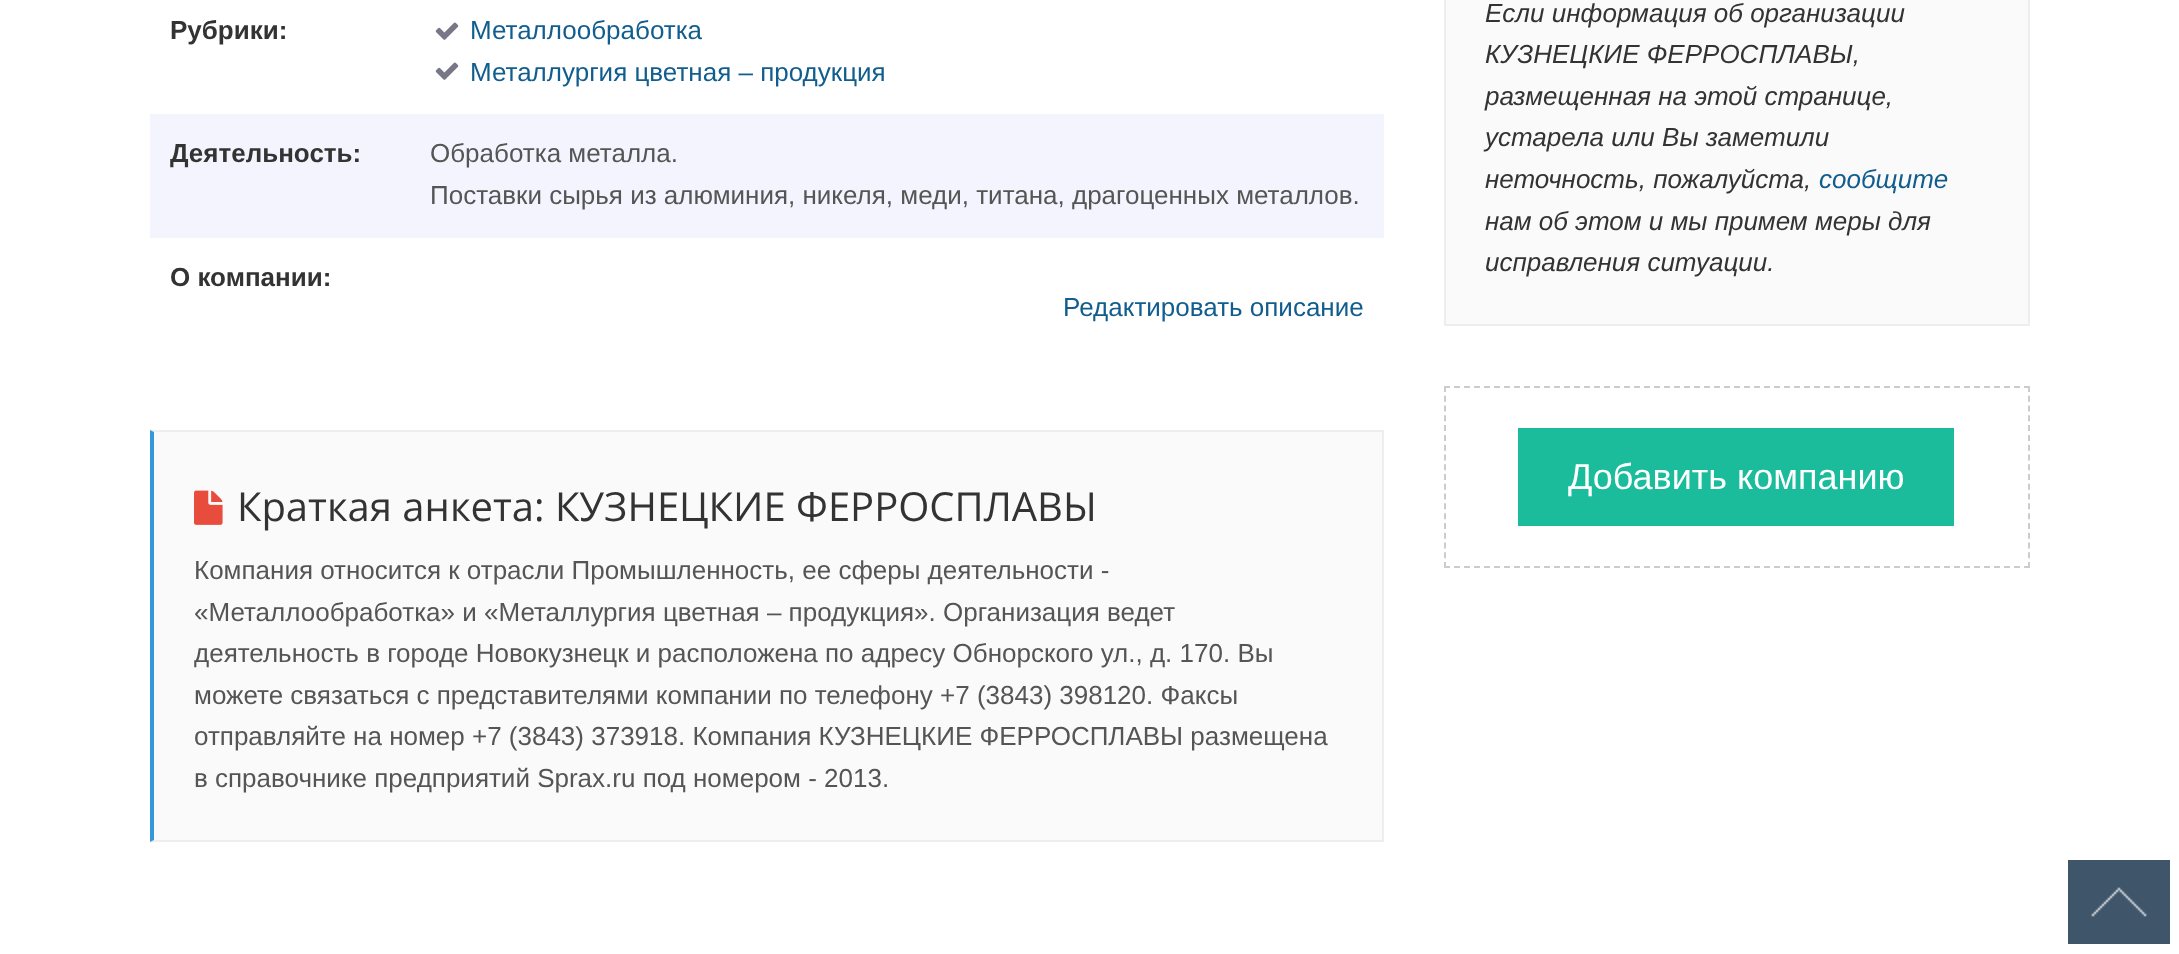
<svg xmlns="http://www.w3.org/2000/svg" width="2179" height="954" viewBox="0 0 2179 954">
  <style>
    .t1 { font: bold 26px Liberation Sans; fill: #333; }
    .t2 { font: 26px Liberation Sans; fill: #115d8e; }
    .t3 { font: 26px Liberation Sans; fill: #555; }
    .t4 { font: 40px Open Sans; fill: #333; }
    .t5 { font: italic 26px Liberation Sans; fill: #333; }
    .t6 { font: italic 26px Liberation Sans; fill: #115d8e; }
    .t7 { font: 36px Liberation Sans; fill: #fff; }
  </style>
  <rect width="100%" height="100%" fill="#fff"/>
  <text x="170" y="39" class="t1">Рубрики:</text>
  <image x="435" y="22" width="24" height="18" href="images/1.png"/>
  <text x="470" y="39" class="t2">Металлообработка</text>
  <image x="435" y="62" width="24" height="18" href="images/1.png"/>
  <text x="470" y="81" class="t2">Металлургия цветная – продукция</text>
  <rect x="150" y="114" width="1234" height="124" fill="#f4f4ff"/>
  <text x="170" y="162" class="t1">Деятельность:</text>
  <text x="430" y="162" class="t3">Обработка металла.</text>
  <text x="430" y="204" class="t3">Поставки сырья из алюминия, никеля, меди, титана, драгоценных металлов.</text>
  <text x="170" y="286" class="t1">О компании:</text>
  <text x="1063" y="316" class="t2">Редактировать описание</text>
  <rect x="154" y="432" width="1228" height="408" fill="#fafafa"/>
  <path d="M150 430H1384L1382 432H154Z" fill="#eee"/>
  <rect x="1382" y="430" width="2" height="412" fill="#eee"/>
  <path d="M1384 842H150L154 840H1382Z" fill="#eee"/>
  <path d="M150 842V430L154 432V840Z" fill="#3498db"/>
  <image x="194" y="490" width="29" height="35" href="images/2.png"/>
  <text x="237" y="521" class="t4">Краткая анкета: КУЗНЕЦКИЕ ФЕРРОСПЛАВЫ</text>
  <text x="194" y="579" class="t3">Компания относится к отрасли Промышленность, ее сферы деятельности -</text>
  <text x="194" y="621" class="t3">«Металлообработка» и «Металлургия цветная – продукция». Организация ведет</text>
  <text x="194" y="662" class="t3">деятельность в городе Новокузнецк и расположена по адресу Обнорского ул., д. 170. Вы</text>
  <text x="194" y="704" class="t3">можете связаться с представителями компании по телефону +7 (3843) 398120. Факсы</text>
  <text x="194" y="745" class="t3">отправляйте на номер +7 (3843) 373918. Компания КУЗНЕЦКИЕ ФЕРРОСПЛАВЫ размещена</text>
  <text x="194" y="787" class="t3">в справочнике предприятий Sprax.ru под номером - 2013.</text>
  <rect x="1445" y="-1" width="584" height="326" fill="#fafafa" stroke="#eee" stroke-width="2"/>
  <text x="1485" y="22" class="t5">Если информация об организации</text>
  <text x="1485" y="63" class="t5">КУЗНЕЦКИЕ ФЕРРОСПЛАВЫ,</text>
  <text x="1485" y="105" class="t5">размещенная на этой странице,</text>
  <text x="1485" y="146" class="t5">устарела или Вы заметили</text>
  <text x="1485" y="188" class="t5">неточность, пожалуйста,</text>
  <text x="1819" y="188" class="t6">сообщите</text>
  <text x="1485" y="230" class="t5">нам об этом и мы примем меры для</text>
  <text x="1485" y="271" class="t5">исправления ситуации.</text>
  <path d="M1444 387H2030" fill="none" stroke="#ccc" stroke-width="2" stroke-dasharray="6 4"/>
  <path d="M2029 386V568" fill="none" stroke="#ccc" stroke-width="2" stroke-dasharray="6 3.78"/>
  <path d="M1444 567H2030" fill="none" stroke="#ccc" stroke-width="2" stroke-dasharray="6 4"/>
  <path d="M1445 386V568" fill="none" stroke="#ccc" stroke-width="2" stroke-dasharray="6 3.78"/>
  <rect x="1518" y="428" width="436" height="98" fill="#1abc9c"/>
  <text x="1568" y="489" class="t7">Добавить компанию</text>
  <image x="2068" y="860" width="102" height="84" href="images/3.png"/>
</svg>
